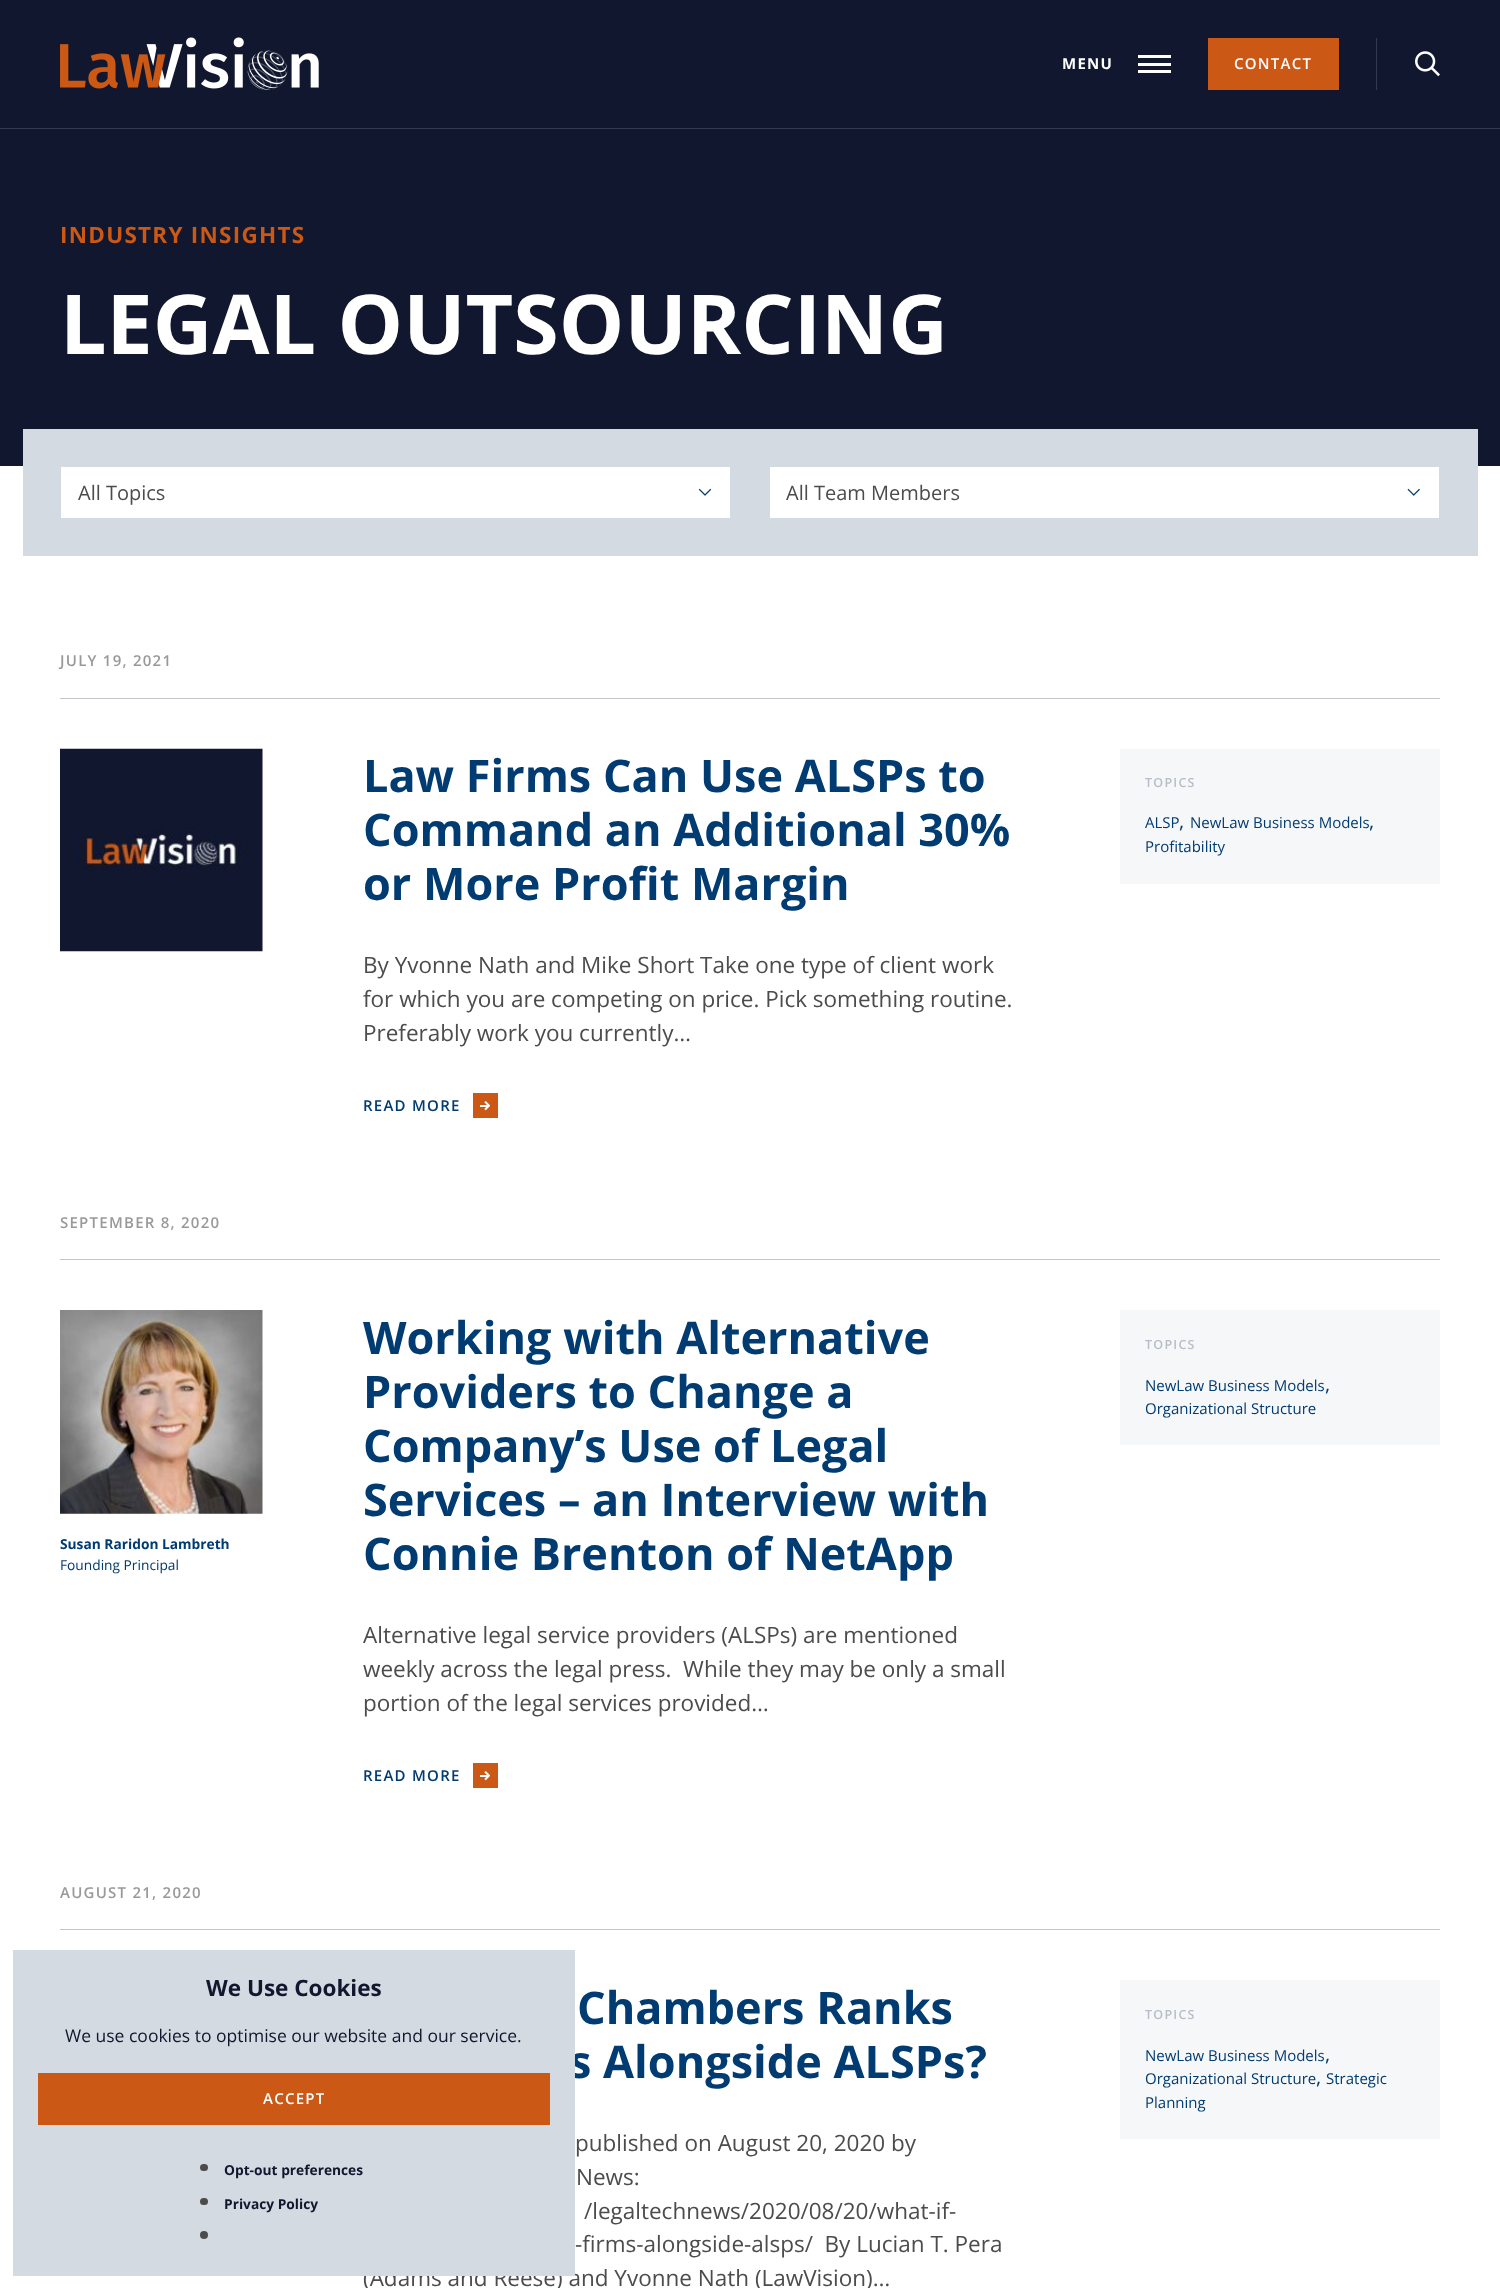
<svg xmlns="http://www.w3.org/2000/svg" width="1500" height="2288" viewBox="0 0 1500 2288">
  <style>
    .t1 { font: bold 15px Open Sans; letter-spacing: 1.25px; fill: #fff; }
    .t2 { font: 600 15px Open Sans; letter-spacing: 1.25px; fill: #fff; }
    .t3 { font: bold 22.5px Open Sans; letter-spacing: 1.25px; fill: #cb5815; }
    .t4 { font: bold 82.5px Open Sans; fill: #fff; }
    .t5 { font: 20px Open Sans; fill: #4c4c4c; }
    .t6 { font: 600 15px Open Sans; letter-spacing: 1.25px; fill: #999; }
    .t7 { font: bold 45px Open Sans; fill: #003b71; }
    .t8 { font: 22.5px Open Sans; fill: #4c4c4c; }
    .t9 { font: 600 15px Open Sans; letter-spacing: 1.25px; fill: #003b71; }
    .t10 { font: 600 12.5px Open Sans; letter-spacing: 1.25px; fill: #b7bdc7; }
    .t11 { font: 15px Open Sans; fill: #003b71; }
    .t12 { font: 20px Open Sans; fill: #003b71; }
    .t13 { font: bold 13.75px Open Sans; fill: #003b71; }
    .t14 { font: 13.75px Open Sans; fill: #003b71; }
    .t15 { font: bold 22.5px Open Sans; fill: #10172e; }
    .t16 { font: 17.5px Open Sans; fill: #10172e; }
    .t17 { font: bold 13.75px Open Sans; fill: #10172e; }
  </style>
  <rect width="100%" height="100%" fill="#fff"/>
  <rect x="0" y="0" width="1500" height="466" fill="#10172e"/>
  <rect x="0" y="128" width="1500" height="1" fill="#343a4d"/>
  <image x="60" y="37" width="259" height="53" href="images/1.png"/>
  <text x="1062" y="69" class="t1">MENU</text>
  <rect x="1138" y="55" width="33" height="3" fill="#fff"/>
  <rect x="1138" y="63" width="33" height="3" fill="#fff"/>
  <rect x="1138" y="70" width="33" height="3" fill="#fff"/>
  <rect x="1208" y="38" width="131" height="52" fill="#cb5815"/>
  <text x="1234" y="69" class="t2">CONTACT</text>
  <rect x="1376" y="38" width="1" height="52" fill="#343a4d"/>
  <image x="1415" y="51" width="25" height="26" href="images/2.png"/>
  <text x="60" y="243" class="t3">INDUSTRY INSIGHTS</text>
  <text x="60" y="354" class="t4">LEGAL OUTSOURCING</text>
  <rect x="23" y="429" width="1455" height="127" fill="#d4dae1"/>
  <rect x="61" y="467" width="669" height="51" fill="#fff"/>
  <text x="78" y="500" class="t5">All Topics</text>
  <image x="698" y="488" width="14" height="8" href="images/3.png"/>
  <rect x="770" y="467" width="669" height="51" fill="#fff"/>
  <text x="786" y="500" class="t5">All Team Members</text>
  <image x="1407" y="488" width="13" height="8" href="images/4.png"/>
  <rect x="60" y="698" width="1380" height="1" fill="#c3c5cb"/>
  <text x="60" y="666" class="t6">JULY 19, 2021</text>
  <image x="60" y="748" width="203" height="204" href="images/5.png"/>
  <text x="363" y="792" class="t7">Law Firms Can Use ALSPs to</text>
  <text x="363" y="846" class="t7">Command an Additional 30%</text>
  <text x="363" y="900" class="t7">or More Profit Margin</text>
  <text x="363" y="973" class="t8">By Yvonne Nath and Mike Short Take one type of client work</text>
  <text x="363" y="1007" class="t8">for which you are competing on price. Pick something routine.</text>
  <text x="363" y="1041" class="t8">Preferably work you currently…</text>
  <text x="363" y="1111" class="t9">READ MORE</text>
  <rect x="473" y="1093" width="25" height="25" fill="#cb5815"/>
  <image x="480" y="1101" width="10" height="10" href="images/6.png"/>
  <rect x="1120" y="749" width="320" height="135" fill="#f6f7f8"/>
  <text x="1145" y="787" class="t10">TOPICS</text>
  <text x="1145" y="828" class="t11">ALSP</text>
  <text x="1179" y="828" class="t12">,</text>
  <text x="1190" y="828" class="t11">NewLaw Business Models</text>
  <text x="1369" y="828" class="t12">,</text>
  <text x="1145" y="852" class="t11">Profitability</text>
  <rect x="60" y="1259" width="1380" height="1" fill="#c3c5cb"/>
  <text x="60" y="1228" class="t6">SEPTEMBER 8, 2020</text>
  <text x="363" y="1354" class="t7">Working with Alternative</text>
  <text x="363" y="1408" class="t7">Providers to Change a</text>
  <text x="363" y="1462" class="t7">Company’s Use of Legal</text>
  <text x="363" y="1516" class="t7">Services – an Interview with</text>
  <text x="363" y="1570" class="t7">Connie Brenton of NetApp</text>
  <text x="363" y="1643" class="t8">Alternative legal service providers (ALSPs) are mentioned</text>
  <text x="363" y="1677" class="t8" xml:space="preserve">weekly across the legal press.  While they may be only a small</text>
  <text x="363" y="1711" class="t8">portion of the legal services provided…</text>
  <text x="363" y="1781" class="t9">READ MORE</text>
  <rect x="473" y="1763" width="25" height="25" fill="#cb5815"/>
  <image x="480" y="1771" width="10" height="10" href="images/6.png"/>
  <rect x="1120" y="1310" width="320" height="135" fill="#f6f7f8"/>
  <text x="1145" y="1349" class="t10">TOPICS</text>
  <text x="1145" y="1391" class="t11">NewLaw Business Models</text>
  <text x="1325" y="1391" class="t12">,</text>
  <text x="1145" y="1414" class="t11">Organizational Structure</text>
  <image x="60" y="1310" width="203" height="204" href="images/7.png"/>
  <text x="60" y="1549" class="t13">Susan Raridon Lambreth</text>
  <text x="60" y="1570" class="t14">Founding Principal</text>
  <rect x="60" y="1929" width="1380" height="1" fill="#c3c5cb"/>
  <text x="60" y="1898" class="t6">AUGUST 21, 2020</text>
  <text x="577" y="2024" class="t7">Chambers Ranks</text>
  <text x="569" y="2078" class="t7">s Alongside ALSPs?</text>
  <text x="575" y="2151" class="t8">published on August 20, 2020 by</text>
  <text x="576" y="2185" class="t8">News:</text>
  <text x="584" y="2219" class="t8">/legaltechnews/2020/08/20/what-if-</text>
  <text x="575" y="2252" class="t8" xml:space="preserve">-firms-alongside-alsps/  By Lucian T. Pera</text>
  <text x="363" y="2286" class="t8">(Adams and Reese) and Yvonne Nath (LawVision)…</text>
  <rect x="1120" y="1980" width="320" height="159" fill="#f6f7f8"/>
  <text x="1145" y="2019" class="t10">TOPICS</text>
  <text x="1145" y="2061" class="t11">NewLaw Business Models</text>
  <text x="1325" y="2061" class="t12">,</text>
  <text x="1145" y="2084" class="t11">Organizational Structure</text>
  <text x="1316" y="2084" class="t12">,</text>
  <text x="1326" y="2084" class="t11">Strategic</text>
  <text x="1145" y="2108" class="t11">Planning</text>
  <rect x="13" y="1950" width="562" height="326" fill="#d4dae1"/>
  <text x="206" y="1996" class="t15">We Use Cookies</text>
  <text x="65" y="2042" class="t16">We use cookies to optimise our website and our service.</text>
  <rect x="38" y="2073" width="512" height="52" fill="#cb5815"/>
  <text x="263" y="2104" class="t2">ACCEPT</text>
  <rect x="200" y="2164" width="8" height="7" rx="3.5" fill="#4c4c4c"/>
  <text x="224" y="2175" class="t17">Opt-out preferences</text>
  <rect x="200" y="2198" width="8" height="7" rx="3.5" fill="#4c4c4c"/>
  <text x="224" y="2209" class="t17">Privacy Policy</text>
  <circle cx="204" cy="2235" r="4" fill="#4c4c4c"/>
</svg>
